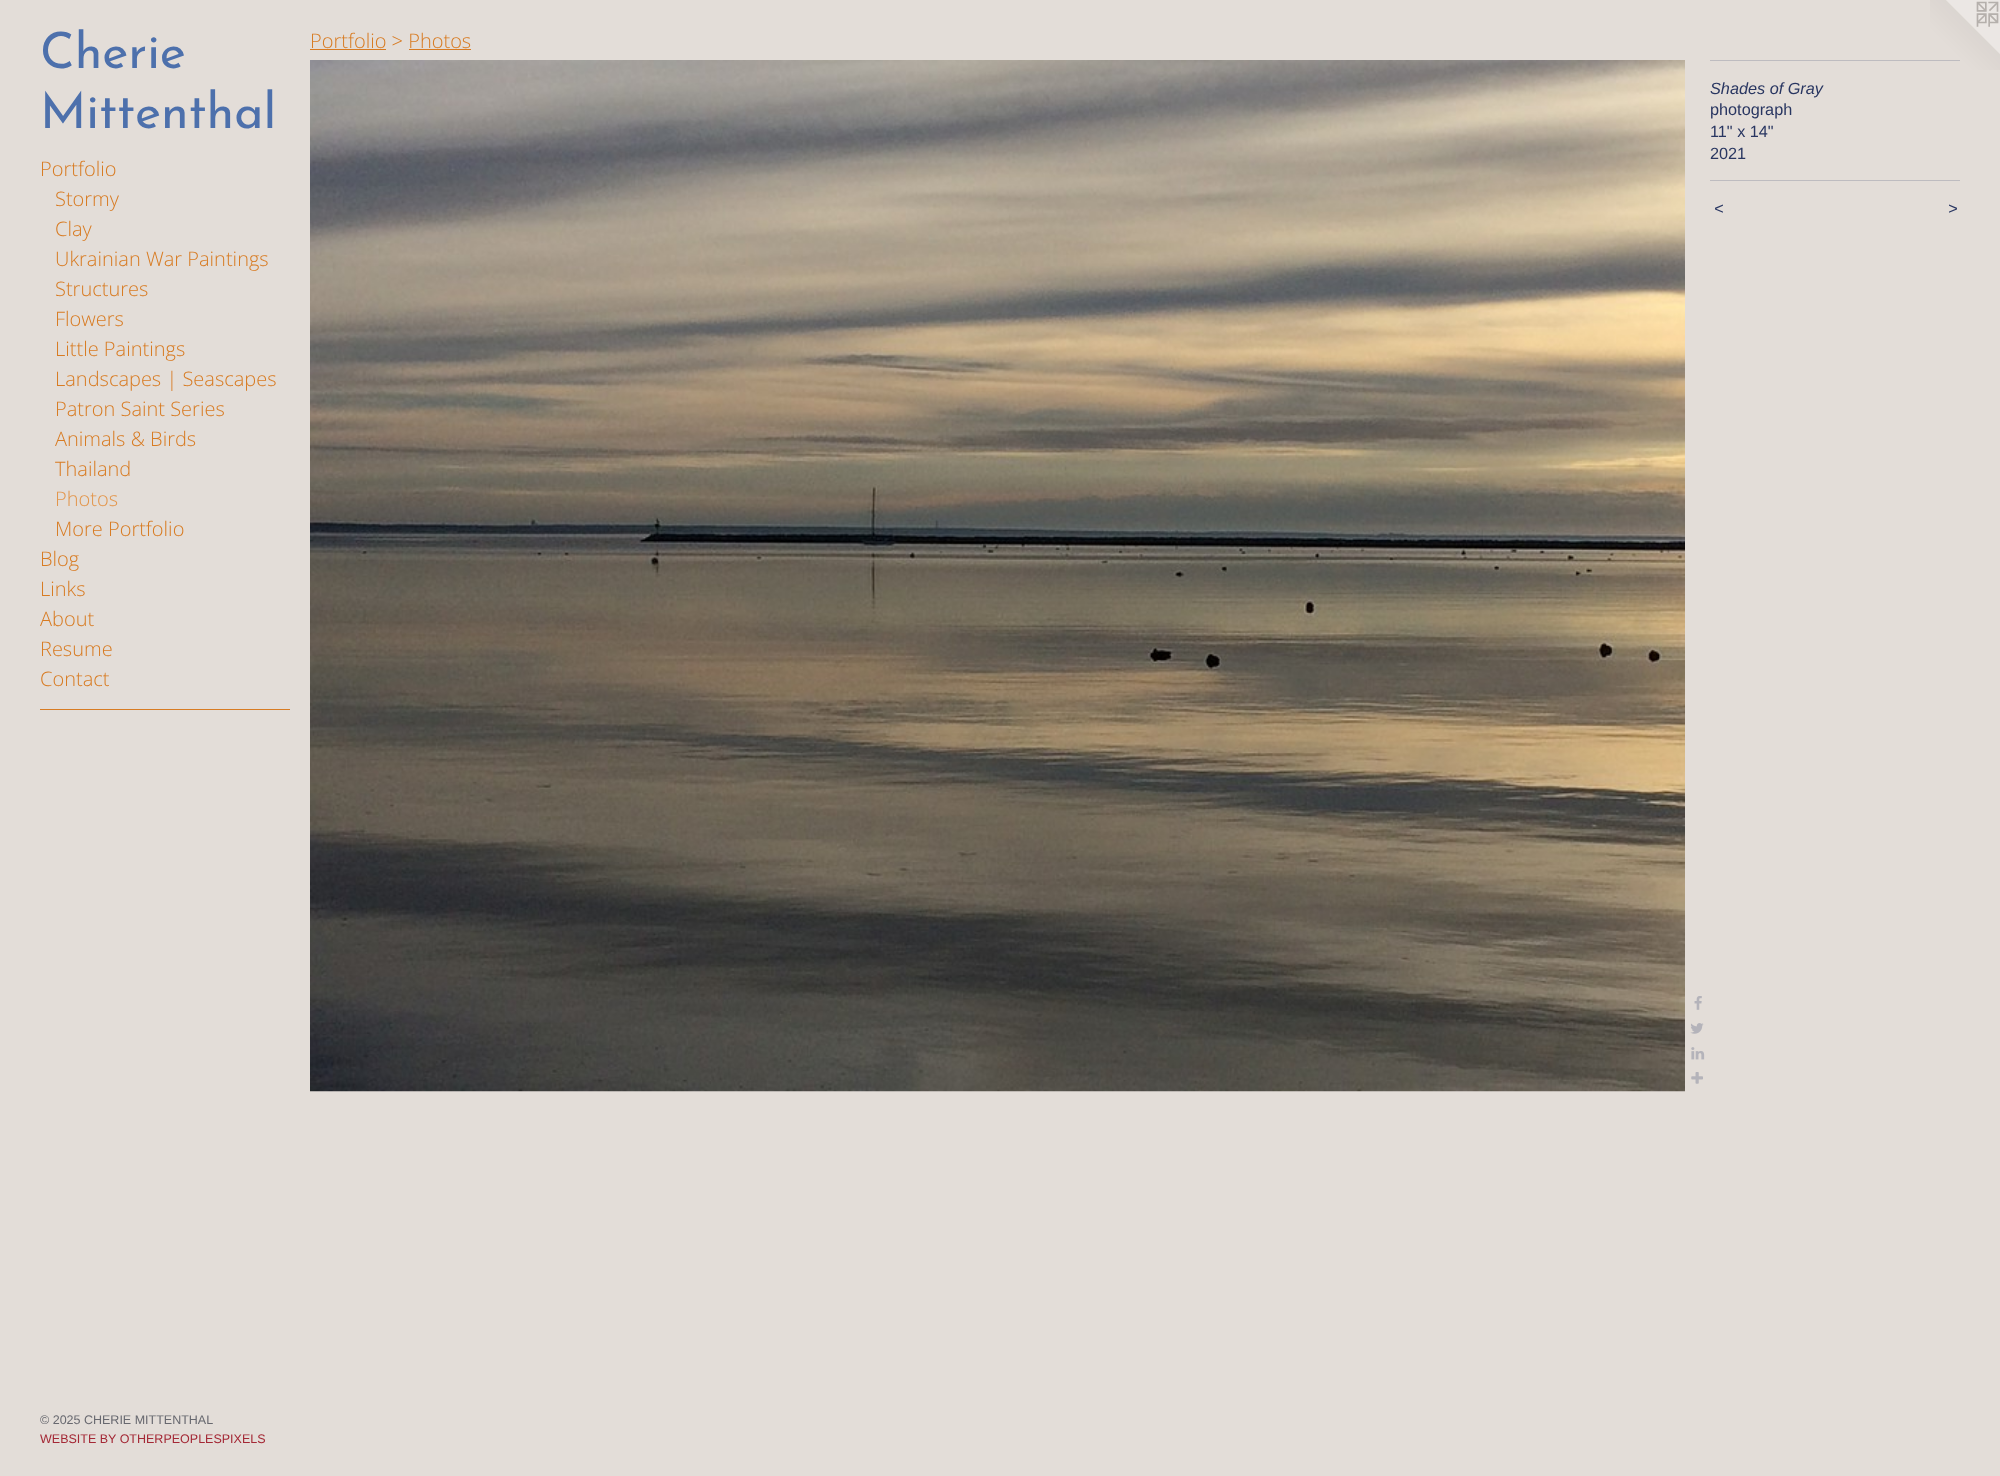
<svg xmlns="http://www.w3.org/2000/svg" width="2000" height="1476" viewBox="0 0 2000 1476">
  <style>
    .t1 { font: 100 50px Josefin Sans; fill: #4d70ac; }
    .t2 { font: 300 20px Open Sans; fill: #d87b22; }
    .t3 { font: 300 20px Open Sans; fill: #e3954a; }
    .t4 { font: 12.5px Liberation Sans; fill: #67686f; }
    .t5 { font: 12.5px Liberation Sans; fill: #a42835; }
    .t6 { font: italic 16.25px Liberation Sans; fill: #293661; }
    .t7 { font: 16.25px Liberation Sans; fill: #293661; }
    .t8 { font: italic 16.25px Liberation Sans; letter-spacing: 1px; fill: #293661; }
  </style>
  <rect width="100%" height="100%" fill="#e3ddd8"/>
  <text x="40" y="68" class="t1">Cherie</text>
  <text x="40" y="128" class="t1">Mittenthal</text>
  <text x="40" y="176" class="t2">Portfolio</text>
  <text x="55" y="206" class="t2">Stormy</text>
  <text x="55" y="236" class="t2">Clay</text>
  <text x="55" y="266" class="t2">Ukrainian War Paintings</text>
  <text x="55" y="296" class="t2">Structures</text>
  <text x="55" y="326" class="t2">Flowers</text>
  <text x="55" y="356" class="t2">Little Paintings</text>
  <text x="55" y="386" class="t2">Landscapes | Seascapes</text>
  <text x="55" y="416" class="t2">Patron Saint Series</text>
  <text x="55" y="446" class="t2">Animals &amp; Birds</text>
  <text x="55" y="476" class="t2">Thailand</text>
  <text x="55" y="506" class="t3">Photos</text>
  <text x="55" y="536" class="t2">More Portfolio</text>
  <text x="40" y="566" class="t2">Blog</text>
  <text x="40" y="596" class="t2">Links</text>
  <text x="40" y="626" class="t2">About</text>
  <text x="40" y="656" class="t2">Resume</text>
  <text x="40" y="686" class="t2">Contact</text>
  <rect x="40" y="709" width="250" height="1" fill="#d87b22"/>
  <text x="40" y="1424" class="t4">© 2025 CHERIE MITTENTHAL</text>
  <text x="40" y="1443" class="t5">WEBSITE BY OTHERPEOPLESPIXELS</text>
  <text x="310" y="48" class="t2">Portfolio &gt; Photos</text>
  <rect x="310" y="49" width="76" height="1" fill="#d87b22"/>
  <rect x="409" y="49" width="62" height="1" fill="#d87b22"/>
  <image x="310" y="60" width="1375" height="1032" href="images/1.png"/>
  <image x="1694" y="996" width="8" height="14" href="images/2.png"/>
  <image x="1690" y="1023" width="14" height="11" href="images/3.png"/>
  <image x="1691" y="1047" width="14" height="13" href="images/4.png"/>
  <image x="1691" y="1072" width="12" height="12" href="images/5.png"/>
  <image x="1930" y="0" width="70" height="70" href="images/6.png"/>
  <rect x="1710" y="60" width="250" height="1" fill="#bebcc0"/>
  <text x="1710" y="94" class="t6">Shades of Gray</text>
  <text x="1710" y="115" class="t7">photograph</text>
  <text x="1710" y="137" class="t7">11" x 14"</text>
  <text x="1710" y="159" class="t7">2021</text>
  <rect x="1710" y="180" width="250" height="1" fill="#bebcc0"/>
  <text x="1714" y="214" class="t8">&lt;</text>
  <text x="1948" y="214" class="t8">&gt;</text>
</svg>
